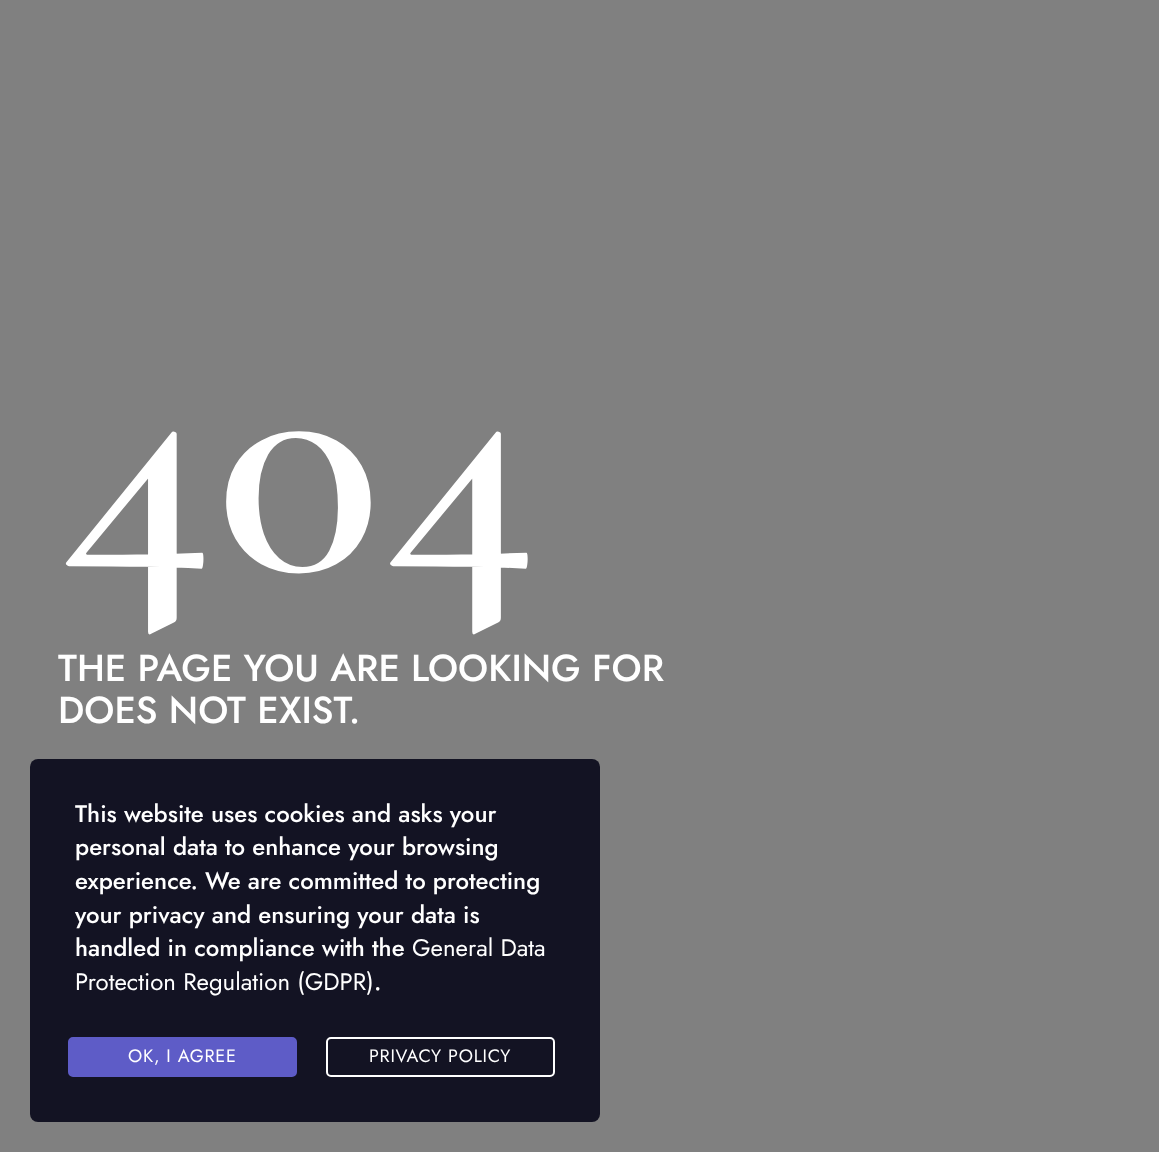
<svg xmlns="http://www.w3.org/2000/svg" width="1159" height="1152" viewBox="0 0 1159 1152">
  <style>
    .t1 { font: 600 345px Cormorant Garamond; letter-spacing: 1.5px; fill: #fff; }
    .t2 { font: 500 37.5px Jost; fill: #fff; }
    .t3 { font: 500 24px Jost; fill: #fff; }
    .t4 { font: 24px Jost; fill: #fff; }
    .t5 { font: 18px Jost; letter-spacing: 0.75px; fill: #fff; }
  </style>
  <rect width="100%" height="100%" fill="#808080"/>
  <text x="58" y="569" class="t1">404</text>
  <text x="58" y="681" class="t2">THE PAGE YOU ARE LOOKING FOR</text>
  <text x="58" y="723" class="t2">DOES NOT EXIST.</text>
  <rect x="30" y="759" width="570" height="363" rx="8" fill="#131323"/>
  <text x="75" y="822" class="t3">This website uses cookies and asks your</text>
  <text x="75" y="855" class="t3">personal data to enhance your browsing</text>
  <text x="75" y="889" class="t3">experience. We are committed to protecting</text>
  <text x="75" y="923" class="t3">your privacy and ensuring your data is</text>
  <text x="75" y="956" class="t3">handled in compliance with the</text>
  <text x="412" y="956" class="t4">General Data</text>
  <text x="75" y="990" class="t4">Protection Regulation (GDPR)</text>
  <text x="374" y="990" class="t3">.</text>
  <rect x="69" y="1038" width="227" height="38" rx="4" fill="#5e5cc7" stroke="#5e5cc7" stroke-width="2"/>
  <text x="128" y="1062" class="t5">OK, I AGREE</text>
  <rect x="327" y="1038" width="227" height="38" rx="4" fill="none" stroke="#fff" stroke-width="2"/>
  <text x="369" y="1062" class="t5">PRIVACY POLICY</text>
</svg>
